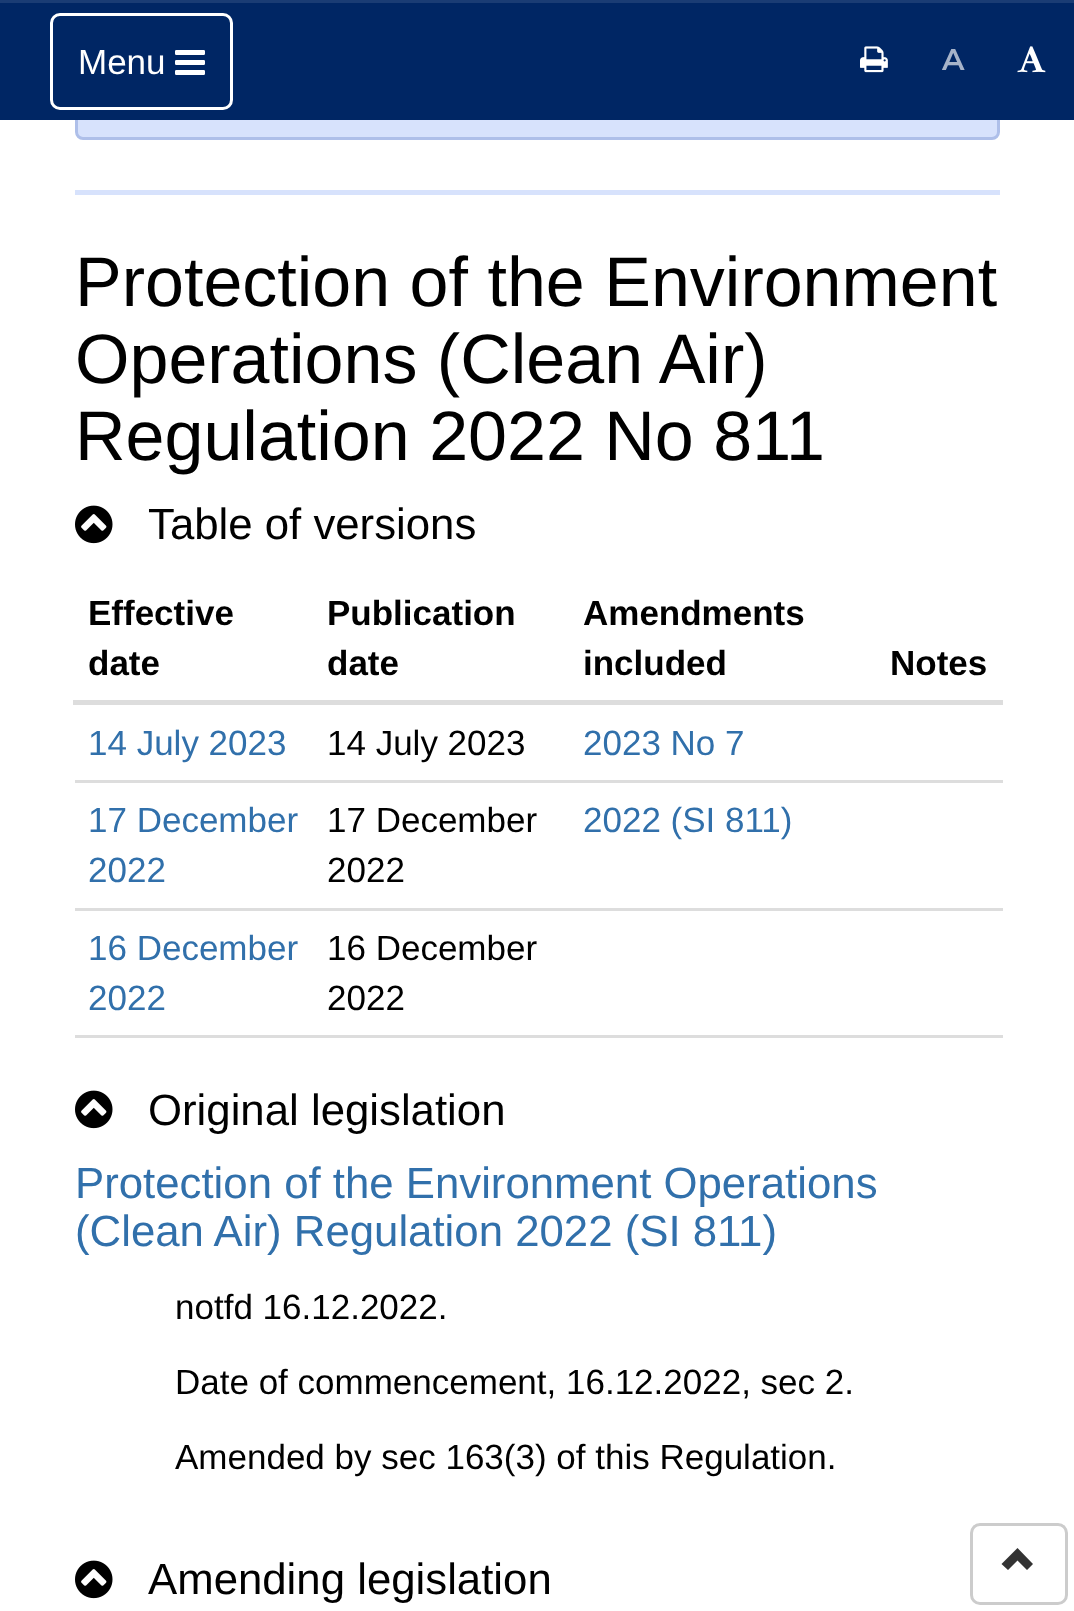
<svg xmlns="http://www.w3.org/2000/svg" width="1074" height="1611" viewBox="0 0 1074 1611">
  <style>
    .t1 { font: 35px Liberation Sans; fill: #fff; }
    .t2 { font: 600 30px Montserrat; letter-spacing: 1px; fill: #a6b3c9; }
    .t3 { font: 70px Liberation Sans; fill: #000; }
    .t4 { font: 43.75px Liberation Sans; fill: #000; }
    .t5 { font: bold 35px Liberation Sans; fill: #000; }
    .t6 { font: 35px Liberation Sans; fill: #3170ab; }
    .t7 { font: 35px Liberation Sans; fill: #000; }
    .t8 { font: 43.75px Liberation Sans; fill: #3170ab; }
  </style>
  <rect width="100%" height="100%" fill="#fff"/>
  <rect x="76.5" y="-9.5" width="922" height="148" rx="6.5" fill="#d7e2fc" stroke="#aebfe9" stroke-width="3"/>
  <rect x="0" y="3" width="1074" height="117" fill="#002664"/>
  <rect x="0" y="0" width="1074" height="3" fill="#1a3c74"/>
  <rect x="51.5" y="14.5" width="180" height="94" rx="8.5" fill="none" stroke="#fff" stroke-width="3"/>
  <text x="78" y="74" class="t1">Menu</text>
  <image x="175" y="50" width="30" height="25" href="images/1.png"/>
  <image x="860" y="46" width="28" height="27" href="images/2.png"/>
  <text x="942" y="70" class="t2">A</text>
  <image x="1017" y="46" width="29" height="27" href="images/3.png"/>
  <rect x="75" y="190" width="925" height="5" fill="#d7e2fc"/>
  <text x="75" y="306" class="t3">Protection of the Environment</text>
  <text x="75" y="383" class="t3">Operations (Clean Air)</text>
  <text x="75" y="460" class="t3">Regulation 2022 No 811</text>
  <image x="75" y="505" width="38" height="39" href="images/4.png"/>
  <text x="148" y="539" class="t4">Table of versions</text>
  <text x="88" y="625" class="t5">Effective</text>
  <text x="88" y="675" class="t5">date</text>
  <text x="327" y="625" class="t5">Publication</text>
  <text x="327" y="675" class="t5">date</text>
  <text x="583" y="625" class="t5">Amendments</text>
  <text x="583" y="675" class="t5">included</text>
  <rect x="73" y="700" width="930" height="5" fill="#ddd"/>
  <text x="890" y="675" class="t5">Notes</text>
  <text x="88" y="755" class="t6">14 July 2023</text>
  <text x="327" y="755" class="t7">14 July 2023</text>
  <text x="583" y="755" class="t6">2023 No 7</text>
  <rect x="75" y="780" width="928" height="3" fill="#ddd"/>
  <text x="88" y="832" class="t6">17 December</text>
  <text x="88" y="882" class="t6">2022</text>
  <text x="327" y="832" class="t7">17 December</text>
  <text x="327" y="882" class="t7">2022</text>
  <text x="583" y="832" class="t6">2022 (SI 811)</text>
  <rect x="75" y="908" width="928" height="3" fill="#ddd"/>
  <text x="88" y="960" class="t6">16 December</text>
  <text x="88" y="1010" class="t6">2022</text>
  <text x="327" y="960" class="t7">16 December</text>
  <text x="327" y="1010" class="t7">2022</text>
  <rect x="75" y="1035" width="928" height="3" fill="#ddd"/>
  <image x="75" y="1090" width="38" height="39" href="images/4.png"/>
  <text x="148" y="1125" class="t4">Original legislation</text>
  <text x="75" y="1198" class="t8">Protection of the Environment Operations</text>
  <text x="75" y="1246" class="t8">(Clean Air) Regulation 2022 (SI 811)</text>
  <text x="175" y="1319" class="t7">notfd 16.12.2022.</text>
  <text x="175" y="1394" class="t7">Date of commencement, 16.12.2022, sec 2.</text>
  <text x="175" y="1469" class="t7">Amended by sec 163(3) of this Regulation.</text>
  <image x="75" y="1560" width="38" height="39" href="images/4.png"/>
  <text x="148" y="1594" class="t4">Amending legislation</text>
  <rect x="971.5" y="1524.5" width="95" height="79" rx="8.5" fill="none" stroke="#ccc" stroke-width="3"/>
  <path d="M1001.5 1564L1008 1570L1017.5 1560.5L1027 1570L1033 1564L1017.5 1548Z" fill="#333"/>
</svg>
